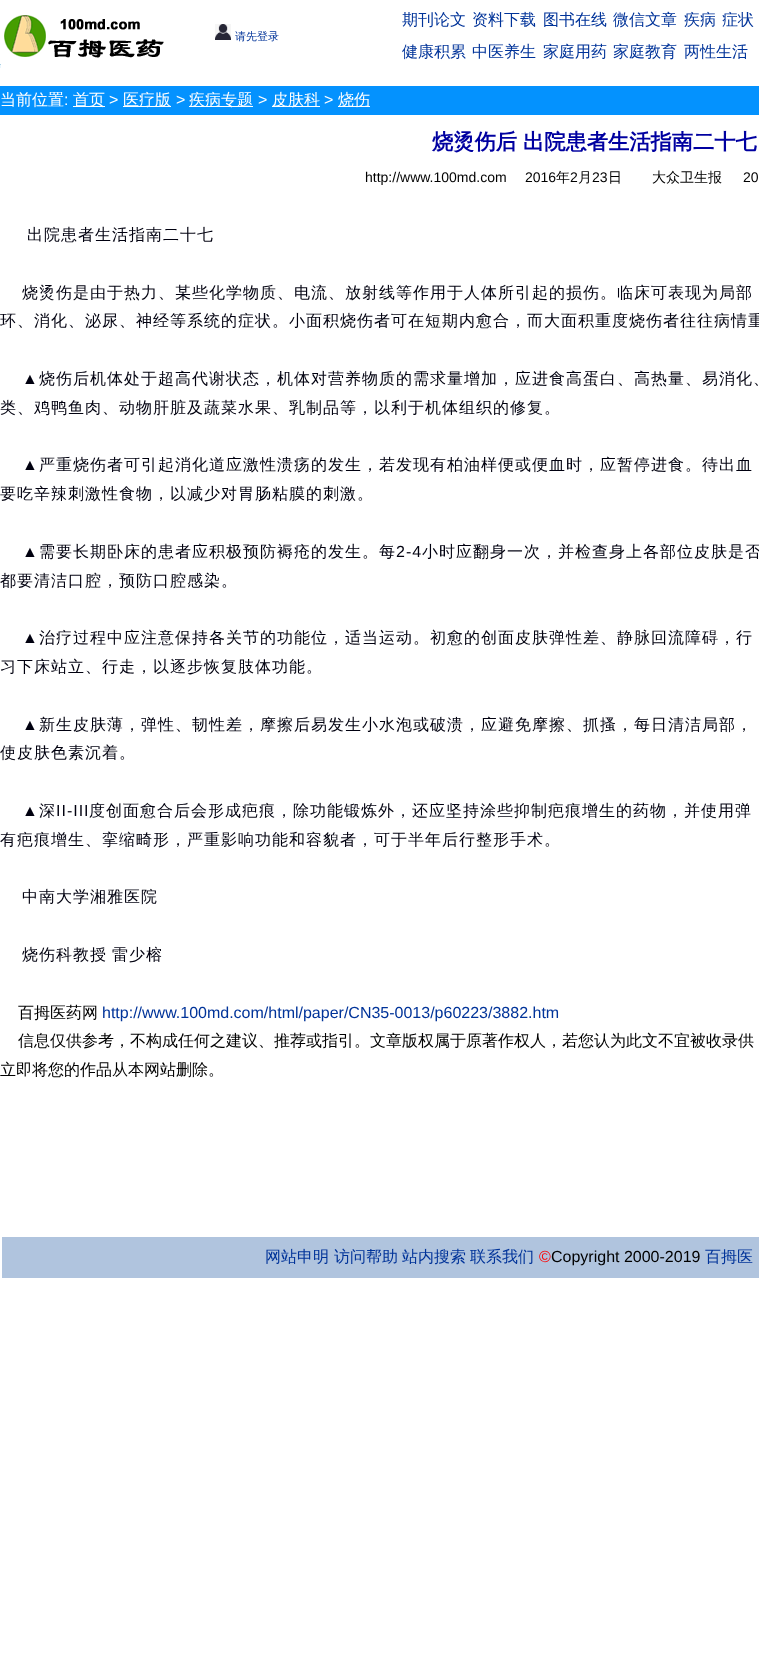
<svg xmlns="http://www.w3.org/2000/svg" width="759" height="1654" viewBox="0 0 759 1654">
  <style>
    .t1 { font: 500 11px WenQuanYi Zen Hei; fill: #039; }
    .t2 { font: 500 16px WenQuanYi Zen Hei; fill: #039; }
    .t3 { font: 500 16px WenQuanYi Zen Hei; fill: #fff; }
    .t4 { font: 16px Liberation Sans; fill: #fff; }
    .t5 { font: bold 21.25px WenQuanYi Zen Hei; fill: #0000a0; }
    .t6 { font: 14px Liberation Sans; fill: #000; }
    .t7 { font: 500 14px WenQuanYi Zen Hei; fill: #000; }
    .t8 { font: 500 16px WenQuanYi Zen Hei; letter-spacing: 1px; fill: #00000f; }
    .t9 { font: 16px Liberation Sans; letter-spacing: 1px; fill: #00000f; }
    .t10 { font: 500 16px WenQuanYi Zen Hei; fill: #000; }
    .t11 { font: 16px Liberation Sans; fill: #039; }
    .t12 { font: 16px Liberation Sans; fill: #f00; }
    .t13 { font: 16px Liberation Sans; fill: #000; }
  </style>
  <rect width="100%" height="100%" fill="#fff"/>
  <image x="0" y="15" width="164" height="53" href="images/1.png"/>
  <image x="215" y="24" width="16" height="16" href="images/2.png"/>
  <text x="235" y="40" class="t1">请先登录</text>
  <text x="402" y="25" class="t2">期刊论文</text>
  <text x="472" y="25" class="t2">资料下载</text>
  <text x="543" y="25" class="t2">图书在线</text>
  <text x="613" y="25" class="t2">微信文章</text>
  <text x="684" y="25" class="t2">疾病</text>
  <text x="722" y="25" class="t2">症状</text>
  <text x="402" y="57" class="t2">健康积累</text>
  <text x="472" y="57" class="t2">中医养生</text>
  <text x="543" y="57" class="t2">家庭用药</text>
  <text x="613" y="57" class="t2">家庭教育</text>
  <text x="684" y="57" class="t2">两性生活</text>
  <rect x="0" y="86" width="759" height="29" fill="#0492fe"/>
  <text x="0" y="105" class="t3">当前位置</text>
  <text x="64" y="105" class="t4">:</text>
  <rect x="73" y="106" width="32" height="1" fill="#fff"/>
  <text x="73" y="105" class="t3">首页</text>
  <text x="109" y="105" class="t4">&gt;</text>
  <rect x="123" y="106" width="48" height="1" fill="#fff"/>
  <text x="123" y="105" class="t3">医疗版</text>
  <text x="176" y="105" class="t4">&gt;</text>
  <rect x="189" y="106" width="64" height="1" fill="#fff"/>
  <text x="189" y="105" class="t3">疾病专题</text>
  <text x="258" y="105" class="t4">&gt;</text>
  <rect x="272" y="106" width="48" height="1" fill="#fff"/>
  <text x="272" y="105" class="t3">皮肤科</text>
  <text x="324" y="105" class="t4">&gt;</text>
  <rect x="338" y="106" width="32" height="1" fill="#fff"/>
  <text x="338" y="105" class="t3">烧伤</text>
  <text x="432" y="149" class="t5">烧烫伤后</text>
  <text x="523" y="149" class="t5">出院患者生活指南二十七</text>
  <text x="365" y="182" class="t6">http://www.100md.com</text>
  <text x="525" y="182" class="t6">2016</text>
  <text x="556" y="182" class="t7">年</text>
  <text x="570" y="182" class="t6">2</text>
  <text x="578" y="182" class="t7">月</text>
  <text x="592" y="182" class="t6">23</text>
  <text x="608" y="182" class="t7">日</text>
  <text x="652" y="182" class="t7">大众卫生报</text>
  <text x="743" y="182" class="t6">20</text>
  <text x="27" y="240" class="t8">出院患者生活指南二十七</text>
  <text x="22" y="298" class="t8">烧烫伤是由于热力、某些化学物质、电流、放射线等作用于人体所引起的损伤。临床可表现为局部</text>
  <text x="0" y="326" class="t8">环、消化、泌尿、神经等系统的症状。小面积烧伤者可在短期内愈合，而大面积重度烧伤者往往病情重</text>
  <text x="22" y="384" class="t9">▲</text>
  <text x="39" y="384" class="t8">烧伤后机体处于超高代谢状态，机体对营养物质的需求量增加，应进食高蛋白、高热量、易消化、</text>
  <text x="0" y="413" class="t8">类、鸡鸭鱼肉、动物肝脏及蔬菜水果、乳制品等，以利于机体组织的修复。</text>
  <text x="22" y="470" class="t9">▲</text>
  <text x="39" y="470" class="t8">严重烧伤者可引起消化道应激性溃疡的发生，若发现有柏油样便或便血时，应暂停进食。待出血</text>
  <text x="0" y="499" class="t8">要吃辛辣刺激性食物，以减少对胃肠粘膜的刺激。</text>
  <text x="22" y="557" class="t9">▲</text>
  <text x="39" y="557" class="t8">需要长期卧床的患者应积极预防褥疮的发生。每</text>
  <text x="396" y="557" class="t9">2-4</text>
  <text x="422" y="557" class="t8">小时应翻身一次，并检查身上各部位皮肤是否</text>
  <text x="0" y="586" class="t8">都要清洁口腔，预防口腔感染。</text>
  <text x="22" y="643" class="t9">▲</text>
  <text x="39" y="643" class="t8">治疗过程中应注意保持各关节的功能位，适当运动。初愈的创面皮肤弹性差、静脉回流障碍，行</text>
  <text x="0" y="672" class="t8">习下床站立、行走，以逐步恢复肢体功能。</text>
  <text x="22" y="730" class="t9">▲</text>
  <text x="39" y="730" class="t8">新生皮肤薄，弹性、韧性差，摩擦后易发生小水泡或破溃，应避免摩擦、抓搔，每日清洁局部，</text>
  <text x="0" y="758" class="t8">使皮肤色素沉着。</text>
  <text x="22" y="816" class="t9">▲</text>
  <text x="39" y="816" class="t8">深</text>
  <text x="56" y="816" class="t9">II-III</text>
  <text x="89" y="816" class="t8">度创面愈合后会形成疤痕，除功能锻炼外，还应坚持涂些抑制疤痕增生的药物，并使用弹</text>
  <text x="0" y="845" class="t8">有疤痕增生、挛缩畸形，严重影响功能和容貌者，可于半年后行整形手术。</text>
  <text x="22" y="902" class="t8">中南大学湘雅医院</text>
  <text x="22" y="960" class="t8">烧伤科教授</text>
  <text x="112" y="960" class="t8">雷少榕</text>
  <text x="18" y="1018" class="t10">百拇医药网</text>
  <text x="102" y="1018" class="t11">http://www.100md.com/html/paper/CN35-0013/p60223/3882.htm</text>
  <text x="18" y="1046" class="t10">信息仅供参考，不构成任何之建议、推荐或指引。文章版权属于原著作权人，若您认为此文不宜被收录供</text>
  <text x="0" y="1075" class="t10">立即将您的作品从本网站删除。</text>
  <rect x="2" y="1237" width="757" height="41" fill="#b0c4de"/>
  <text x="265" y="1262" class="t2">网站申明</text>
  <text x="334" y="1262" class="t2">访问帮助</text>
  <text x="402" y="1262" class="t2">站内搜索</text>
  <text x="470" y="1262" class="t2">联系我们</text>
  <text x="539" y="1262" class="t12">©</text>
  <text x="551" y="1262" class="t13">Copyright 2000-2019</text>
  <text x="705" y="1262" class="t2">百拇医</text>
</svg>
